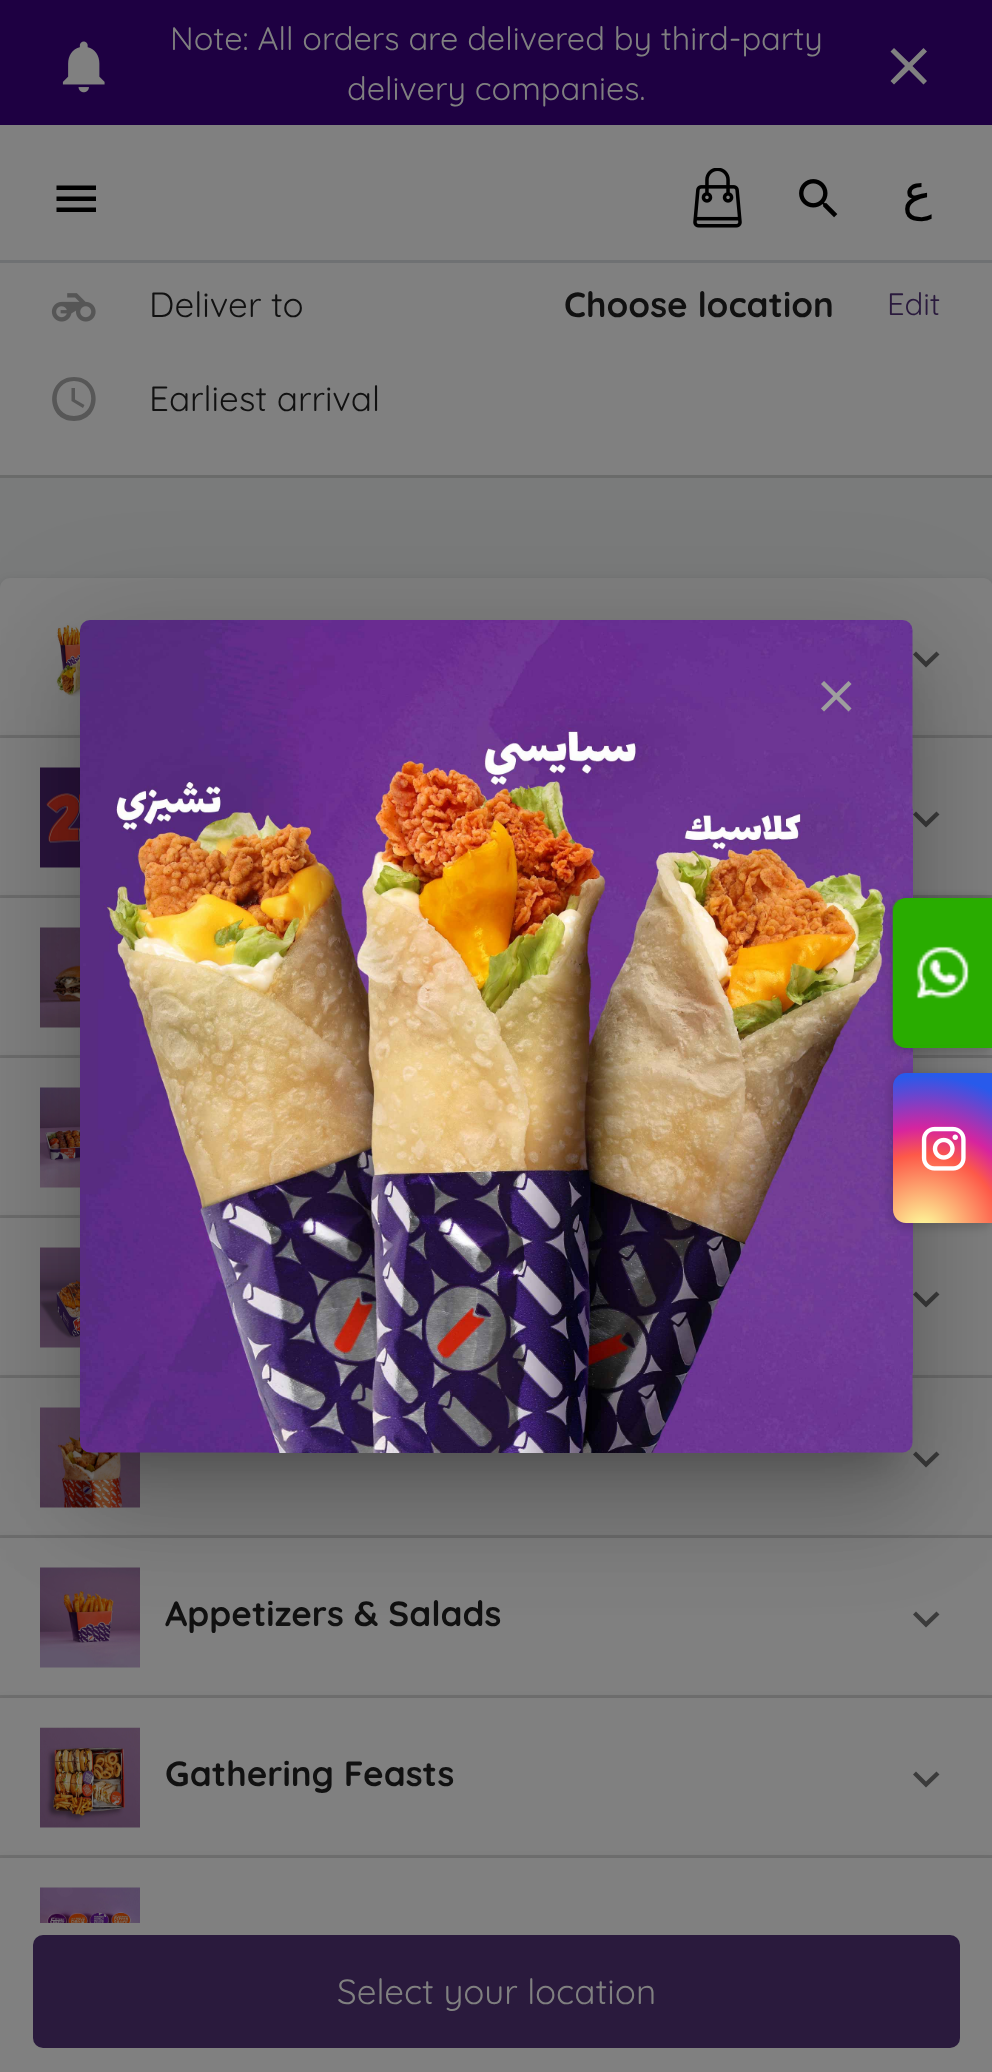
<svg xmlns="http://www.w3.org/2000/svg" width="992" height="2072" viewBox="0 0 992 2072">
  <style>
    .t1 { font: 300 32.5px Quicksand; fill: #808080; }
    .t2 { font: 50px DejaVu Sans; direction: rtl; fill: #000; }
    .t3 { font: 300 35px Quicksand; fill: #111; }
    .t4 { font: 300 35px 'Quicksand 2'; fill: #111; }
    .t5 { font: 300 31px Quicksand; fill: #2a1a3d; }
    .t6 { font: 300 35px Quicksand; fill: #808080; }
  </style>
  <defs>
    <radialGradient id="g1" gradientUnits="userSpaceOnUse" cx="923" cy="1233" r="175"><stop offset="0" stop-color="#fdf497"/><stop offset="0.05" stop-color="#fdf497"/><stop offset="0.45" stop-color="#fd5949"/><stop offset="0.6" stop-color="#d6249f"/><stop offset="0.9" stop-color="#285aeb"/></radialGradient>
  </defs>
  <rect width="100%" height="100%" fill="#7a7b7b"/>
  <rect x="0" y="0" width="992" height="125" fill="#1e0042"/>
  <image x="62" y="41" width="43" height="52" href="images/1.png"/>
  <text x="170" y="50" class="t1">Note: All orders are delivered by third-party</text>
  <text x="347" y="100" class="t1">delivery companies.</text>
  <path d="M927 51.5L923.5 48L909 62.5L894 48L890.5 51.5L905 66L890.5 81L894 84.5L909 70L923.5 84.5L927 81L912.5 66Z" fill="#808080"/>
  <rect x="0" y="125" width="992" height="135" fill="#808080"/>
  <rect x="0" y="260" width="992" height="3" fill="#6f7173"/>
  <path d="M56.5 212H96V207.5H56.5ZM56.5 201H96V196.5H56.5ZM56.5 185.5V190H96V185.5Z" fill="#000"/>
  <image x="693" y="168" width="49" height="60" href="images/2.png"/>
  <image x="799" y="179" width="39" height="39" href="images/3.png"/>
  <text x="932" y="209" class="t2">ع</text>
  <rect x="0" y="263" width="992" height="212" fill="#808080"/>
  <rect x="0" y="475" width="992" height="3" fill="#6a6b6a"/>
  <image x="51" y="293" width="45" height="29" href="images/4.png"/>
  <text x="149" y="317" class="t3">Deliver to</text>
  <text x="564" y="317" class="t4">Choose location</text>
  <text x="887" y="315" class="t5">Edit</text>
  <path d="M74 377C45 377 45 421 74 421C103 421 103 377 74 377ZM74 416C51 416 51 381 74 381C97 381 97 416 74 416Z" fill="#575757"/>
  <path d="M75 388H71.5V401L83 408L84.5 405L75 399.5Z" fill="#575757"/>
  <text x="149" y="411" class="t3">Earliest arrival</text>
  <rect x="0" y="580" width="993" height="160" rx="10" fill="#0000001f" filter="blur(4px)"/>
  <path d="M10 578H983C988.5 578 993 582.5 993 588V738H0V588C0 582.5 4.5 578 10 578Z" fill="#808080"/>
  <image x="56" y="622" width="29" height="75" href="images/5.png"/>
  <path d="M936.5 651.5L926 661.5L916 651.5L913 654.5L926 667.5L939.5 654.5Z" fill="#3b3b3b"/>
  <rect x="0" y="740" width="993" height="160" fill="#0000001f" filter="blur(4px)"/>
  <rect x="0" y="738" width="992" height="160" fill="#808080"/>
  <rect x="0" y="735" width="992" height="3" fill="#0000001f"/>
  <image x="40" y="767" width="40" height="101" href="images/6.png"/>
  <path d="M936.5 811.5L926 821.5L916 811.5L913 814.5L926 827.5L939.5 814.5Z" fill="#3b3b3b"/>
  <rect x="0" y="900" width="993" height="160" fill="#0000001f" filter="blur(4px)"/>
  <rect x="0" y="898" width="992" height="160" fill="#808080"/>
  <rect x="0" y="895" width="992" height="3" fill="#0000001f"/>
  <image x="40" y="927" width="40" height="101" href="images/7.png"/>
  <rect x="0" y="1060" width="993" height="160" fill="#0000001f" filter="blur(4px)"/>
  <rect x="0" y="1058" width="992" height="160" fill="#808080"/>
  <rect x="0" y="1055" width="992" height="3" fill="#0000001f"/>
  <image x="40" y="1087" width="40" height="101" href="images/8.png"/>
  <rect x="0" y="1220" width="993" height="160" fill="#0000001f" filter="blur(4px)"/>
  <rect x="0" y="1218" width="992" height="160" fill="#808080"/>
  <rect x="0" y="1215" width="80" height="3" fill="#0000001f"/>
  <image x="40" y="1247" width="40" height="101" href="images/9.png"/>
  <path d="M936.5 1291.5L926 1301.5L916 1291.5L913 1294.5L926 1307.5L939.5 1294.5Z" fill="#3b3b3b"/>
  <rect x="0" y="1380" width="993" height="160" fill="#0000001f" filter="blur(4px)"/>
  <rect x="0" y="1378" width="992" height="160" fill="#808080"/>
  <rect x="0" y="1375" width="992" height="3" fill="#0000001f"/>
  <image x="40" y="1407" width="100" height="101" href="images/10.png"/>
  <path d="M936.5 1451.5L926 1461.5L916 1451.5L913 1454.5L926 1467.5L939.5 1454.5Z" fill="#3b3b3b"/>
  <rect x="0" y="1540" width="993" height="160" fill="#0000001f" filter="blur(4px)"/>
  <rect x="0" y="1538" width="992" height="160" fill="#808080"/>
  <rect x="0" y="1535" width="992" height="3" fill="#0000001f"/>
  <image x="40" y="1567" width="100" height="101" href="images/11.png"/>
  <text x="165" y="1626" class="t4">Appetizers &amp; Salads</text>
  <path d="M936.5 1611.5L926 1621.5L916 1611.5L913 1614.5L926 1627.5L939.5 1614.5Z" fill="#3b3b3b"/>
  <rect x="0" y="1700" width="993" height="160" fill="#0000001f" filter="blur(4px)"/>
  <rect x="0" y="1698" width="992" height="160" fill="#808080"/>
  <rect x="0" y="1695" width="992" height="3" fill="#0000001f"/>
  <image x="40" y="1727" width="100" height="101" href="images/12.png"/>
  <text x="165" y="1786" class="t4">Gathering Feasts</text>
  <path d="M936.5 1771.5L926 1781.5L916 1771.5L913 1774.5L926 1787.5L939.5 1774.5Z" fill="#3b3b3b"/>
  <rect x="0" y="1860" width="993" height="160" fill="#0000001f" filter="blur(4px)"/>
  <rect x="0" y="1858" width="992" height="214" fill="#808080"/>
  <rect x="0" y="1855" width="992" height="3" fill="#0000001f"/>
  <image x="40" y="1887" width="100" height="36" href="images/13.png"/>
  <rect x="33" y="1935" width="927" height="113" rx="10" fill="#2a1a3d"/>
  <text x="337" y="2004" class="t6">Select your location</text>
  <rect x="60" y="623" width="873" height="872" rx="30" fill="#0000001f" filter="blur(57.5px)"/>
  <rect x="73" y="673" width="847" height="847" rx="18" fill="#00000024" filter="blur(47.5px)"/>
  <rect x="98" y="665" width="797" height="798" fill="#00000033" filter="blur(19px)"/>
  <image x="80" y="620" width="833" height="833" href="images/16.png"/>
  <rect x="890" y="898" width="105" height="155" rx="15" fill="#00000026" filter="blur(4px)"/>
  <path d="M906 898H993V1048H906C899 1048 893 1042 893 1035V911C893 904 899 898 906 898Z" fill="#29ac00"/>
  <image x="892" y="899" width="78" height="147" href="images/14.png"/>
  <rect x="890" y="1073" width="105" height="155" rx="15" fill="#00000026" filter="blur(4px)"/>
  <path d="M906 1073H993V1223H906C899 1223 893 1217 893 1210V1086C893 1079 899 1073 906 1073Z" fill="url(#g1)"/>
  <image x="921" y="1126" width="45" height="45" href="images/15.png"/>
  <image x="821" y="681" width="31" height="31" href="images/17.png"/>
</svg>
